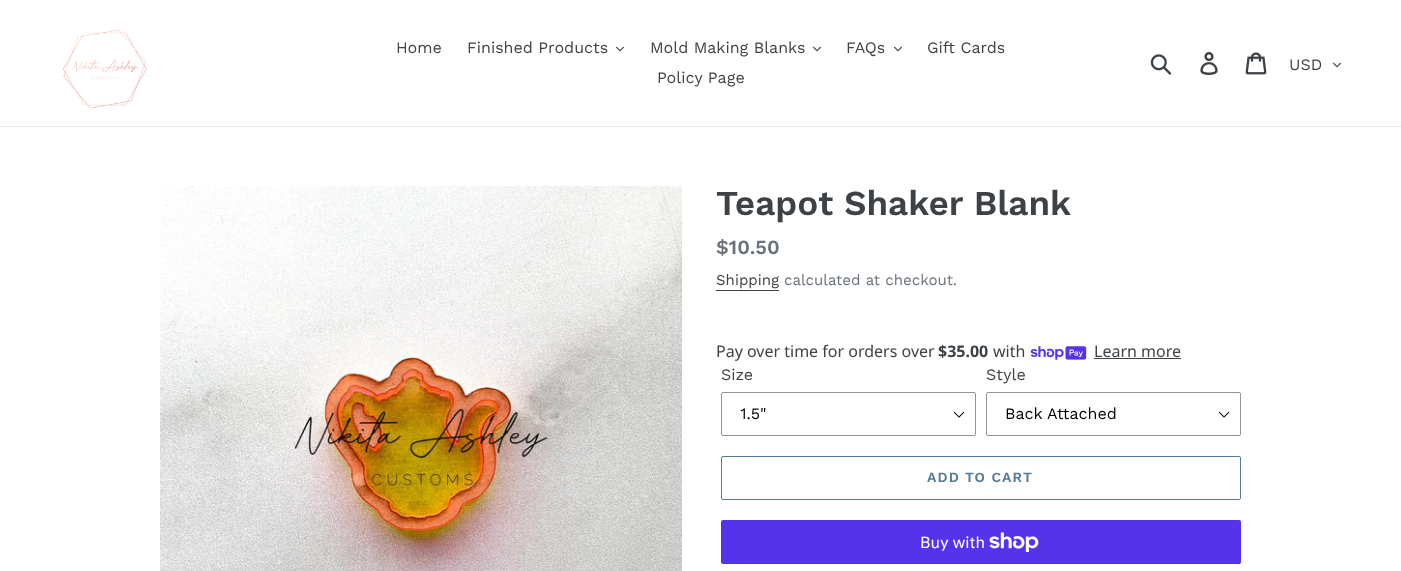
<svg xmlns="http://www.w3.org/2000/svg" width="1401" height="571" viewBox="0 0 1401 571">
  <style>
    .t1 { font: 16px Work Sans; fill: #3d4246; }
    .t2 { font: 600 35px Work Sans; fill: #3d4246; }
    .t3 { font: 600 20px Work Sans; fill: #69727b; }
    .t4 { font: 15px Work Sans; fill: #3d4246; }
    .t5 { font: 15px Work Sans; fill: #69727b; }
    .t6 { font: 16px Noto Sans; fill: #3d4246; }
    .t7 { font: bold 16px Noto Sans; fill: #3d4246; }
    .t8 { font: 16px Work Sans; fill: #000; }
    .t9 { font: 600 14px Work Sans; letter-spacing: 1.1px; fill: #557b97; }
    .t10 { font: 16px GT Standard; fill: #fff; }
  </style>
  <rect width="100%" height="100%" fill="#fff"/>
  <rect x="0" y="126" width="1401" height="1" fill="#e8e9eb"/>
  <image x="63" y="29" width="84" height="80" href="images/1.png"/>
  <text x="396" y="53" class="t1">Home</text>
  <text x="467" y="53" class="t1">Finished Products</text>
  <image x="616" y="46" width="8" height="6" href="images/2.png"/>
  <text x="650" y="53" class="t1">Mold Making Blanks</text>
  <image x="813" y="46" width="8" height="6" href="images/2.png"/>
  <text x="846" y="53" class="t1">FAQs</text>
  <image x="894" y="46" width="8" height="6" href="images/2.png"/>
  <text x="927" y="53" class="t1">Gift Cards</text>
  <text x="657" y="83" class="t1">Policy Page</text>
  <image x="1150" y="54" width="22" height="21" href="images/3.png"/>
  <image x="1200" y="52" width="18" height="23" href="images/4.png"/>
  <image x="1245" y="52" width="22" height="23" href="images/5.png"/>
  <text x="1289" y="70" class="t1">USD</text>
  <image x="1333" y="62" width="8" height="6" href="images/2.png"/>
  <image x="160" y="186" width="522" height="385" href="images/6.png"/>
  <text x="716" y="215" class="t2">Teapot Shaker Blank</text>
  <text x="716" y="254" class="t3">$10.50</text>
  <text x="716" y="285" class="t4">Shipping</text>
  <rect x="716" y="290" width="63" height="1" fill="#3d4246"/>
  <text x="784" y="285" class="t5">calculated at checkout.</text>
  <text x="716" y="357" class="t6">Pay over time for orders over</text>
  <text x="938" y="357" class="t7">$35.00</text>
  <text x="993" y="357" class="t6">with</text>
  <image x="1030" y="346" width="57" height="14" href="images/7.png"/>
  <text x="1094" y="357" class="t6">Learn more</text>
  <rect x="1094" y="358" width="87" height="1" fill="#3d4246"/>
  <text x="721" y="380" class="t1">Size</text>
  <image x="953" y="411" width="12" height="7" href="images/8.png"/>
  <rect x="721.5" y="392.5" width="254" height="43" rx="1.5" fill="none" stroke="#949494"/>
  <text x="740" y="419" class="t8">1.5"</text>
  <text x="986" y="380" class="t1">Style</text>
  <image x="1218" y="411" width="12" height="7" href="images/8.png"/>
  <rect x="986.5" y="392.5" width="254" height="43" rx="1.5" fill="none" stroke="#949494"/>
  <text x="1005" y="419" class="t8">Back Attached</text>
  <rect x="721.5" y="456.5" width="519" height="43" rx="1.5" fill="none" stroke="#557b97"/>
  <text x="927" y="482" class="t9">ADD TO CART</text>
  <rect x="721" y="520" width="520" height="44" rx="2" fill="#5433eb"/>
  <text x="920" y="548" class="t10">Buy with</text>
  <image x="989" y="532" width="50" height="20" href="images/9.png"/>
</svg>
